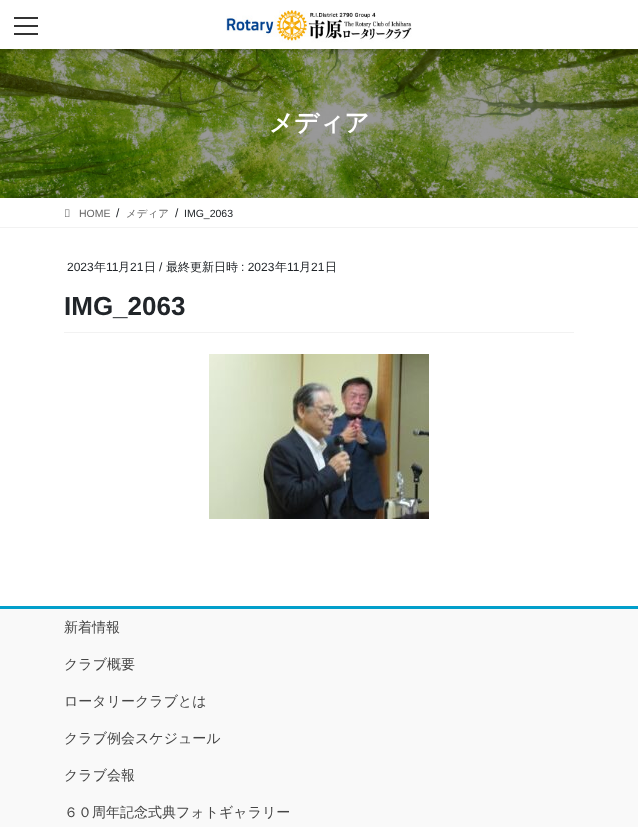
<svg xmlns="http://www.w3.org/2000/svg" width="638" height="827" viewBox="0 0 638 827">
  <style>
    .t1 { font: bold 24.5px WenQuanYi Zen Hei; fill: #fff; }
    .t2 { font: 10.5px Liberation Sans; fill: #666; }
    .t3 { font: 12px Liberation Sans; fill: #212529; }
    .t4 { font: 500 10.5px WenQuanYi Zen Hei; fill: #666; }
    .t5 { font: 10.5px Liberation Sans; fill: #212529; }
    .t6 { font: 500 12px WenQuanYi Zen Hei; fill: #212529; }
    .t7 { font: bold 26px Liberation Sans; fill: #212529; }
    .t8 { font: 500 14px WenQuanYi Zen Hei; fill: #464646; }
  </style>
  <defs>
    <clipPath id="clip1"><rect x="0" y="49" width="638" height="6"/></clipPath>
  </defs>
  <rect width="100%" height="100%" fill="#fff"/>
  <image x="0" y="49" width="638" height="149" href="images/2.png"/>
  <g clip-path="url(#clip1)">
    <rect x="0" y="1" width="638" height="49" fill="#0000004d" filter="blur(3.5px)"/>
  </g>
  <image x="226" y="10" width="186" height="33" href="images/1.png"/>
  <rect x="14" y="17" width="24" height="2" fill="#333"/>
  <rect x="14" y="25" width="24" height="2" fill="#333"/>
  <rect x="14" y="33" width="24" height="2" fill="#333"/>
  <text x="269" y="131" class="t1">メディア</text>
  <rect x="0" y="227" width="638" height="1" fill="#f2f2f2"/>
  <image x="65" y="209" width="5" height="8" href="images/3.png"/>
  <text x="79" y="217" class="t2">HOME</text>
  <text x="116" y="217" class="t3">/</text>
  <text x="126" y="217" class="t4">メディア</text>
  <text x="175" y="217" class="t3">/</text>
  <text x="184" y="217" class="t5">IMG_2063</text>
  <rect x="64" y="332" width="510" height="1" fill="#f2f2f2"/>
  <text x="67" y="271" class="t3">2023</text>
  <text x="94" y="271" class="t6">年</text>
  <text x="106" y="271" class="t3">11</text>
  <text x="118" y="271" class="t6">月</text>
  <text x="130" y="271" class="t3">21</text>
  <text x="144" y="271" class="t6">日</text>
  <text x="159" y="271" class="t3">/</text>
  <text x="166" y="271" class="t6">最終更新日時</text>
  <text x="241" y="271" class="t3">: 2023</text>
  <text x="275" y="271" class="t6">年</text>
  <text x="287" y="271" class="t3">11</text>
  <text x="299" y="271" class="t6">月</text>
  <text x="311" y="271" class="t3">21</text>
  <text x="325" y="271" class="t6">日</text>
  <text x="64" y="315" class="t7">IMG_2063</text>
  <image x="209" y="354" width="220" height="165" href="images/4.png"/>
  <rect x="0" y="609" width="638" height="218" fill="#f9f9f9"/>
  <rect x="0" y="606" width="638" height="3" fill="#019fcb"/>
  <text x="64" y="632" class="t8">新着情報</text>
  <text x="64" y="669" class="t8">クラブ概要</text>
  <text x="64" y="706" class="t8">ロータリークラブとは</text>
  <text x="64" y="743" class="t8">クラブ例会スケジュール</text>
  <text x="64" y="780" class="t8">クラブ会報</text>
  <text x="64" y="817" class="t8">６０周年記念式典フォトギャラリー</text>
</svg>
